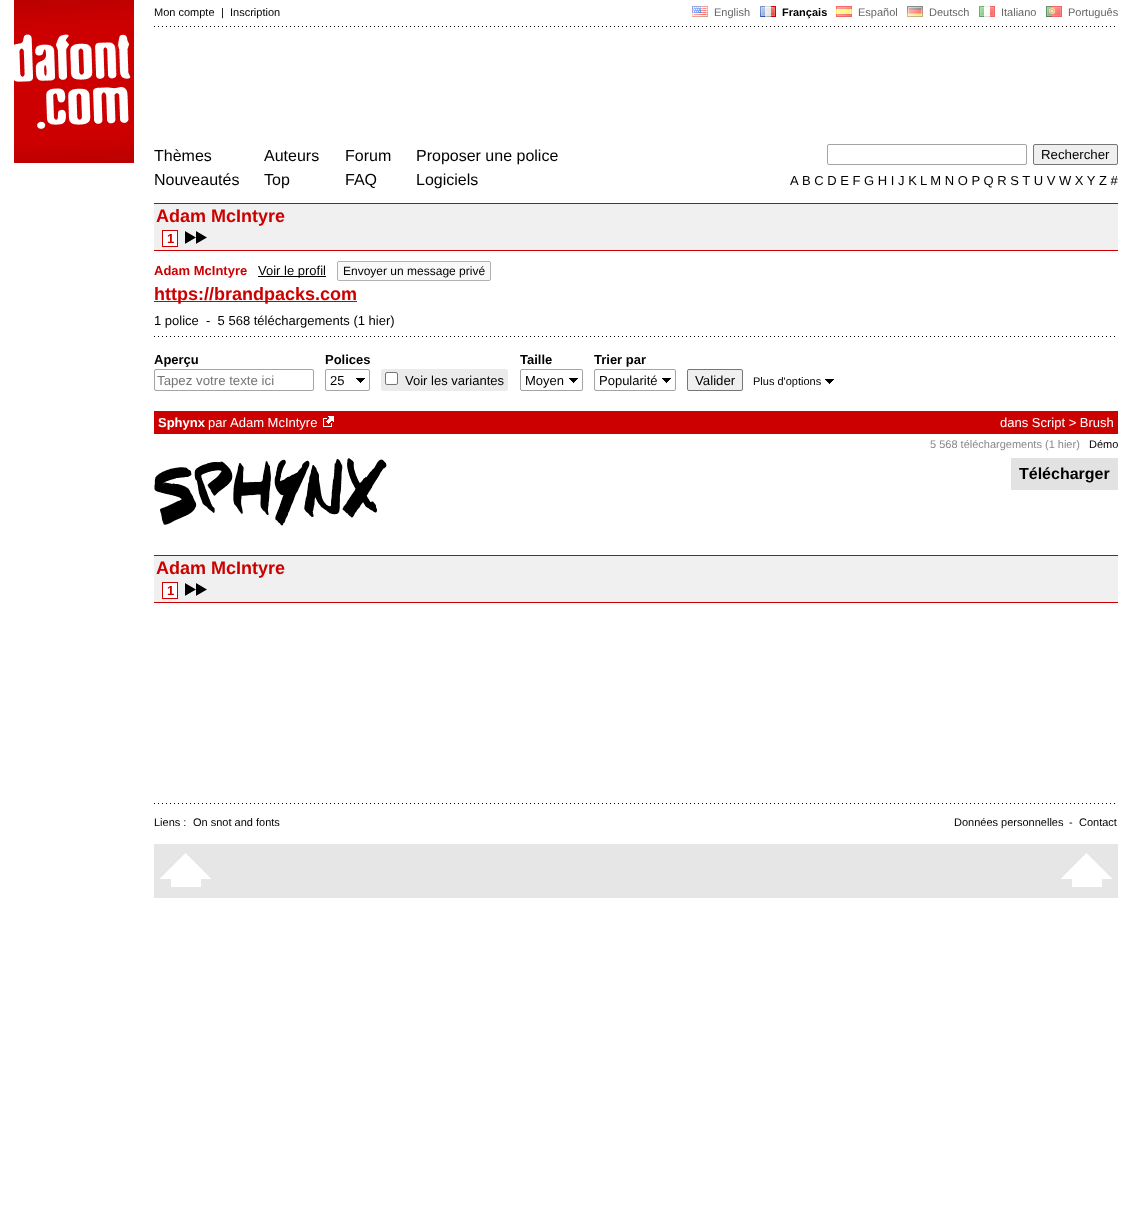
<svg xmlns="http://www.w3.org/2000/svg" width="1132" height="1228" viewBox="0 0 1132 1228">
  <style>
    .t1 { font: 11px Liberation Sans; fill: #000; }
    .t2 { font: 11px Liberation Sans; fill: #666; }
    .t3 { font: bold 11px Liberation Sans; fill: #000; }
    .t4 { font: 16px Liberation Sans; fill: #000; }
    .t5 { font: 13.25px Liberation Sans; fill: #000; }
    .t6 { font: 13px Liberation Sans; fill: #000; }
    .t7 { font: bold 18px Liberation Sans; fill: #c00; }
    .t8 { font: bold 13px Liberation Sans; fill: #c00; }
    .t9 { font: 12px Liberation Sans; fill: #000; }
    .t10 { font: bold 13px Liberation Sans; fill: #000; }
    .t11 { font: 13.25px Liberation Sans; fill: #757575; }
    .t12 { font: bold 13px Liberation Sans; fill: #fff; }
    .t13 { font: 13px Liberation Sans; fill: #fff; }
    .t14 { font: 11px Liberation Sans; fill: #888; }
    .t15 { font: bold 16px Liberation Sans; fill: #000; }
  </style>
  <rect width="100%" height="100%" fill="#fff"/>
  <image x="14" y="0" width="120" height="163" href="images/1.png"/>
  <text x="154" y="16" class="t1">Mon compte</text>
  <text x="221" y="16" class="t1">|</text>
  <text x="230" y="16" class="t1">Inscription</text>
  <image x="692" y="6" width="16" height="11" href="images/2.png"/>
  <text x="714" y="16" class="t2">English</text>
  <image x="760" y="6" width="16" height="11" href="images/3.png"/>
  <text x="782" y="16" class="t3">Français</text>
  <image x="836" y="6" width="16" height="11" href="images/4.png"/>
  <text x="858" y="16" class="t2">Español</text>
  <image x="907" y="6" width="16" height="11" href="images/5.png"/>
  <text x="929" y="16" class="t2">Deutsch</text>
  <image x="979" y="6" width="16" height="11" href="images/6.png"/>
  <text x="1001" y="16" class="t2">Italiano</text>
  <image x="1046" y="6" width="16" height="11" href="images/7.png"/>
  <text x="1068" y="16" class="t2">Português</text>
  <image x="154" y="26" width="961" height="1" href="images/8.png"/>
  <text x="154" y="161" class="t4">Thèmes</text>
  <text x="154" y="185" class="t4">Nouveautés</text>
  <text x="264" y="161" class="t4">Auteurs</text>
  <text x="264" y="185" class="t4">Top</text>
  <text x="345" y="161" class="t4">Forum</text>
  <text x="345" y="185" class="t4">FAQ</text>
  <text x="416" y="161" class="t4">Proposer une police</text>
  <text x="416" y="185" class="t4">Logiciels</text>
  <rect x="827.5" y="144.5" width="199" height="20" rx="1.5" fill="none" stroke="#a4a4a4"/>
  <rect x="1033.5" y="144.5" width="84" height="20" rx="1.5" fill="#efefef" stroke="#767676"/>
  <text x="1041" y="159" class="t5">Rechercher</text>
  <text x="790" y="185" class="t6">A</text>
  <text x="802" y="185" class="t6">B C D E F G H I J K</text>
  <text x="920" y="185" class="t6">L M N O P Q R S T U V W X Y Z #</text>
  <rect x="154" y="204" width="964" height="46" fill="#f0f0f0"/>
  <rect x="154" y="203" width="964" height="1" fill="#c00"/>
  <rect x="154" y="250" width="964" height="1" fill="#c00"/>
  <text x="156" y="222" class="t7">Adam McIntyre</text>
  <rect x="162.5" y="230.5" width="15" height="16" fill="#fff" stroke="#c00"/>
  <text x="167" y="243" class="t8">1</text>
  <image x="185" y="231" width="22" height="13" href="images/9.png"/>
  <text x="154" y="275" class="t8">Adam McIntyre</text>
  <rect x="258" y="276" width="68" height="1" fill="#000"/>
  <text x="258" y="275" class="t6">Voir le profil</text>
  <rect x="337.5" y="261.5" width="153" height="19" rx="1.5" fill="#f9f9f9" stroke="#b1b1b1"/>
  <text x="343" y="275" class="t9">Envoyer un message privé</text>
  <rect x="154" y="301" width="203" height="1" fill="#c00"/>
  <text x="154" y="300" class="t7">https://brandpacks.com</text>
  <text x="154" y="325" class="t6" xml:space="preserve">1 police  -  5 568 téléchargements (1 hier)</text>
  <image x="154" y="336" width="961" height="1" href="images/8.png"/>
  <text x="154" y="364" class="t10">Aperçu</text>
  <rect x="154.5" y="369.5" width="159" height="21" rx="1.5" fill="none" stroke="#a4a4a4"/>
  <text x="157" y="385" class="t11">Tapez votre texte ici</text>
  <text x="325" y="364" class="t10">Polices</text>
  <image x="356" y="378" width="9" height="5" href="images/10.png"/>
  <rect x="325.5" y="369.5" width="44" height="21" rx="1.5" fill="none" stroke="#a4a4a4"/>
  <text x="330" y="385" class="t6">25</text>
  <rect x="381" y="369" width="127" height="22" rx="2" fill="#ebebeb"/>
  <rect x="385.5" y="372.5" width="12" height="12" rx="1.5" fill="#fff" stroke="#767676"/>
  <text x="405" y="385" class="t6">Voir les variantes</text>
  <text x="520" y="364" class="t10">Taille</text>
  <image x="569" y="378" width="9" height="5" href="images/10.png"/>
  <rect x="520.5" y="369.5" width="62" height="21" rx="1.5" fill="none" stroke="#a4a4a4"/>
  <text x="525" y="385" class="t6">Moyen</text>
  <text x="594" y="364" class="t10">Trier par</text>
  <image x="662" y="378" width="9" height="5" href="images/10.png"/>
  <rect x="594.5" y="369.5" width="81" height="21" rx="1.5" fill="none" stroke="#a4a4a4"/>
  <text x="599" y="385" class="t6">Popularité</text>
  <rect x="687.5" y="369.5" width="55" height="21" rx="1.5" fill="#efefef" stroke="#767676"/>
  <text x="695" y="385" class="t5">Valider</text>
  <text x="753" y="385" class="t1">Plus d'options</text>
  <image x="825" y="379" width="9" height="5" href="images/10.png"/>
  <rect x="154" y="411" width="964" height="23" fill="#c00"/>
  <text x="158" y="427" class="t12">Sphynx</text>
  <text x="208" y="427" class="t13">par</text>
  <text x="230" y="427" class="t13">Adam McIntyre</text>
  <image x="323" y="416" width="11" height="11" href="images/11.png"/>
  <text x="1000" y="427" class="t13">dans Script &gt; Brush</text>
  <text x="930" y="448" class="t14">5 568 téléchargements (1 hier)</text>
  <text x="1089" y="448" class="t1">Démo</text>
  <image x="154" y="458" width="233" height="68" href="images/12.png"/>
  <rect x="1011" y="458" width="107" height="32" fill="#e2e2e2"/>
  <text x="1019" y="479" class="t15">Télécharger</text>
  <rect x="154" y="556" width="964" height="46" fill="#f0f0f0"/>
  <rect x="154" y="555" width="964" height="1" fill="#c00"/>
  <rect x="154" y="602" width="964" height="1" fill="#c00"/>
  <text x="156" y="574" class="t7">Adam McIntyre</text>
  <rect x="162.5" y="582.5" width="15" height="16" fill="#fff" stroke="#c00"/>
  <text x="167" y="595" class="t8">1</text>
  <image x="185" y="583" width="22" height="13" href="images/9.png"/>
  <image x="154" y="803" width="961" height="1" href="images/8.png"/>
  <text x="154" y="826" class="t1">Liens :</text>
  <text x="193" y="826" class="t1">On snot and fonts</text>
  <text x="954" y="826" class="t1">Données personnelles</text>
  <text x="1069" y="826" class="t1">-</text>
  <text x="1079" y="826" class="t1">Contact</text>
  <rect x="154" y="844" width="964" height="54" fill="#e6e6e6"/>
  <image x="160" y="853" width="51" height="34" href="images/13.png"/>
  <image x="1061" y="853" width="51" height="34" href="images/13.png"/>
</svg>
